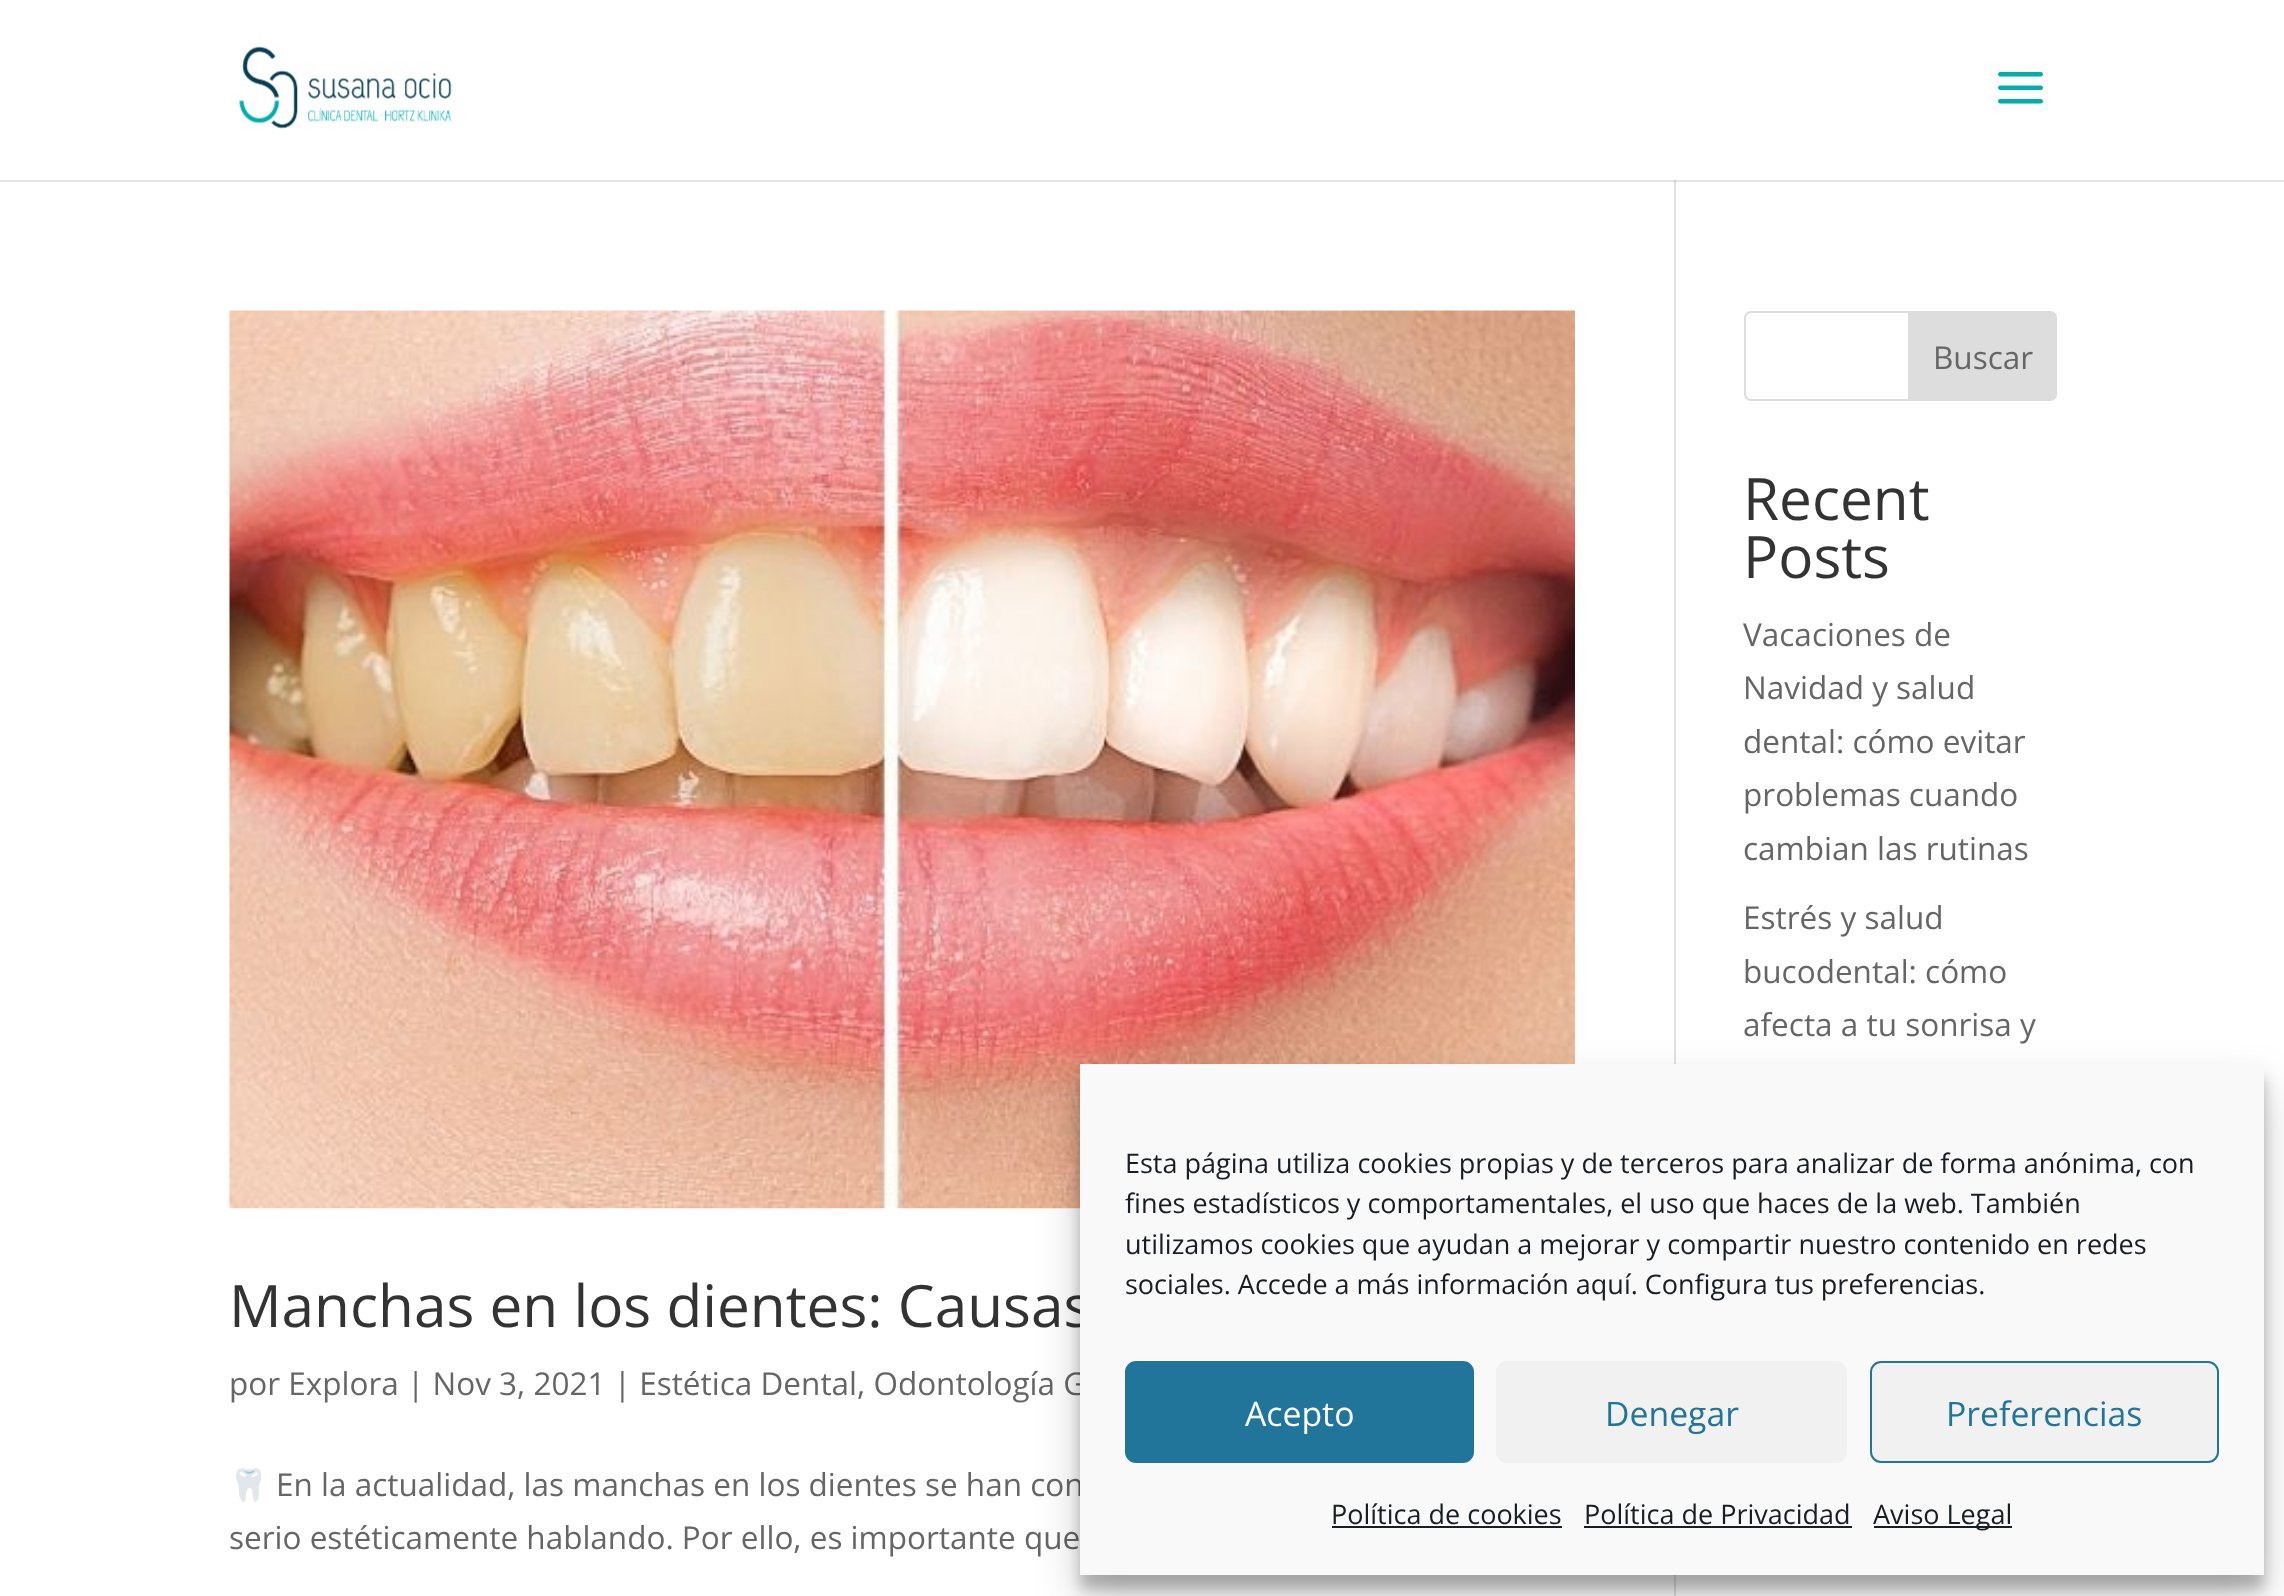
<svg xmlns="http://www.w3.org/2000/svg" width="2284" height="1596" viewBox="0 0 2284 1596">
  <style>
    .t1 { font: 31.5px Open Sans; fill: #666; }
    .t2 { font: 58.5px Open Sans; fill: #333; }
    .t3 { font: 31.5px Noto Color Emoji; fill: #666; }
    .t4 { font: 27px Open Sans; fill: #191e23; }
    .t5 { font: 33.75px Open Sans; fill: #fff; }
    .t6 { font: 33.75px Open Sans; fill: #21759b; }
  </style>
  <rect width="100%" height="100%" fill="#fff"/>
  <rect x="0" y="180" width="2284" height="2" fill="#e6e6e6"/>
  <image x="239" y="46" width="213" height="83" href="images/1.png"/>
  <image x="1998" y="72" width="45" height="32" href="images/2.png"/>
  <rect x="1674" y="180" width="2" height="1416" fill="#e2e2e2"/>
  <rect x="1674" y="180" width="2" height="2" fill="#cbcbcb"/>
  <rect x="1745" y="312" width="311" height="88" rx="6" fill="none" stroke="#ddd" stroke-width="2"/>
  <path d="M1909 312H2050C2053.5 312 2056 314.5 2056 318V394C2056 397.5 2053.5 400 2050 400H1909Z" fill="#ddd" stroke="#ddd" stroke-width="2"/>
  <text x="1933" y="369" class="t1">Buscar</text>
  <text x="1743" y="520" class="t2">Recent</text>
  <text x="1743" y="578" class="t2">Posts</text>
  <text x="1743" y="646" class="t1">Vacaciones de</text>
  <text x="1743" y="699" class="t1">Navidad y salud</text>
  <text x="1743" y="753" class="t1">dental: cómo evitar</text>
  <text x="1743" y="806" class="t1">problemas cuando</text>
  <text x="1743" y="860" class="t1">cambian las rutinas</text>
  <text x="1743" y="929" class="t1">Estrés y salud</text>
  <text x="1743" y="983" class="t1">bucodental: cómo</text>
  <text x="1743" y="1036" class="t1">afecta a tu sonrisa y</text>
  <image x="229" y="310" width="1346" height="899" href="images/3.png"/>
  <text x="229" y="1327" class="t2">Manchas en los dientes: Causas</text>
  <text x="229" y="1395" class="t1">por Explora | Nov 3, 2021 | Estética Dental, Odontología G</text>
  <text x="229" y="1496" class="t3">🦷</text>
  <text x="276" y="1496" class="t1">En la actualidad, las manchas en los dientes se han con</text>
  <text x="229" y="1549" class="t1">serio estéticamente hablando. Por ello, es importante que</text>
  <rect x="1080" y="1078" width="1184" height="511" fill="#0000003b" filter="blur(7px)"/>
  <rect x="1080" y="1087" width="1184" height="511" fill="#00000030" filter="blur(22.5px)"/>
  <rect x="1080" y="1064" width="1184" height="511" fill="#f9f9f9"/>
  <text x="1125" y="1173" class="t4">Esta página utiliza cookies propias y de terceros para analizar de forma anónima, con</text>
  <text x="1125" y="1213" class="t4">fines estadísticos y comportamentales, el uso que haces de la web. También</text>
  <text x="1125" y="1254" class="t4">utilizamos cookies que ayudan a mejorar y compartir nuestro contenido en redes</text>
  <text x="1125" y="1294" class="t4">sociales. Accede a más información aquí. Configura tus preferencias.</text>
  <rect x="1126" y="1362" width="347" height="100" rx="10" fill="#21759b" stroke="#21759b" stroke-width="2"/>
  <text x="1245" y="1426" class="t5">Acepto</text>
  <rect x="1496" y="1361" width="351" height="102" rx="11" fill="#f1f1f1"/>
  <text x="1605" y="1426" class="t6">Denegar</text>
  <rect x="1871" y="1362" width="347" height="100" rx="10" fill="#f1f1f1" stroke="#21759b" stroke-width="2"/>
  <text x="1946" y="1426" class="t6">Preferencias</text>
  <text x="1331" y="1524" class="t4">Política de cookies</text>
  <rect x="1332" y="1526" width="230" height="2" fill="#191e23"/>
  <text x="1584" y="1524" class="t4">Política de Privacidad</text>
  <rect x="1584" y="1526" width="268" height="2" fill="#191e23"/>
  <rect x="1874" y="1526" width="138" height="2" fill="#191e23"/>
  <text x="1873" y="1524" class="t4">Aviso Legal</text>
</svg>
